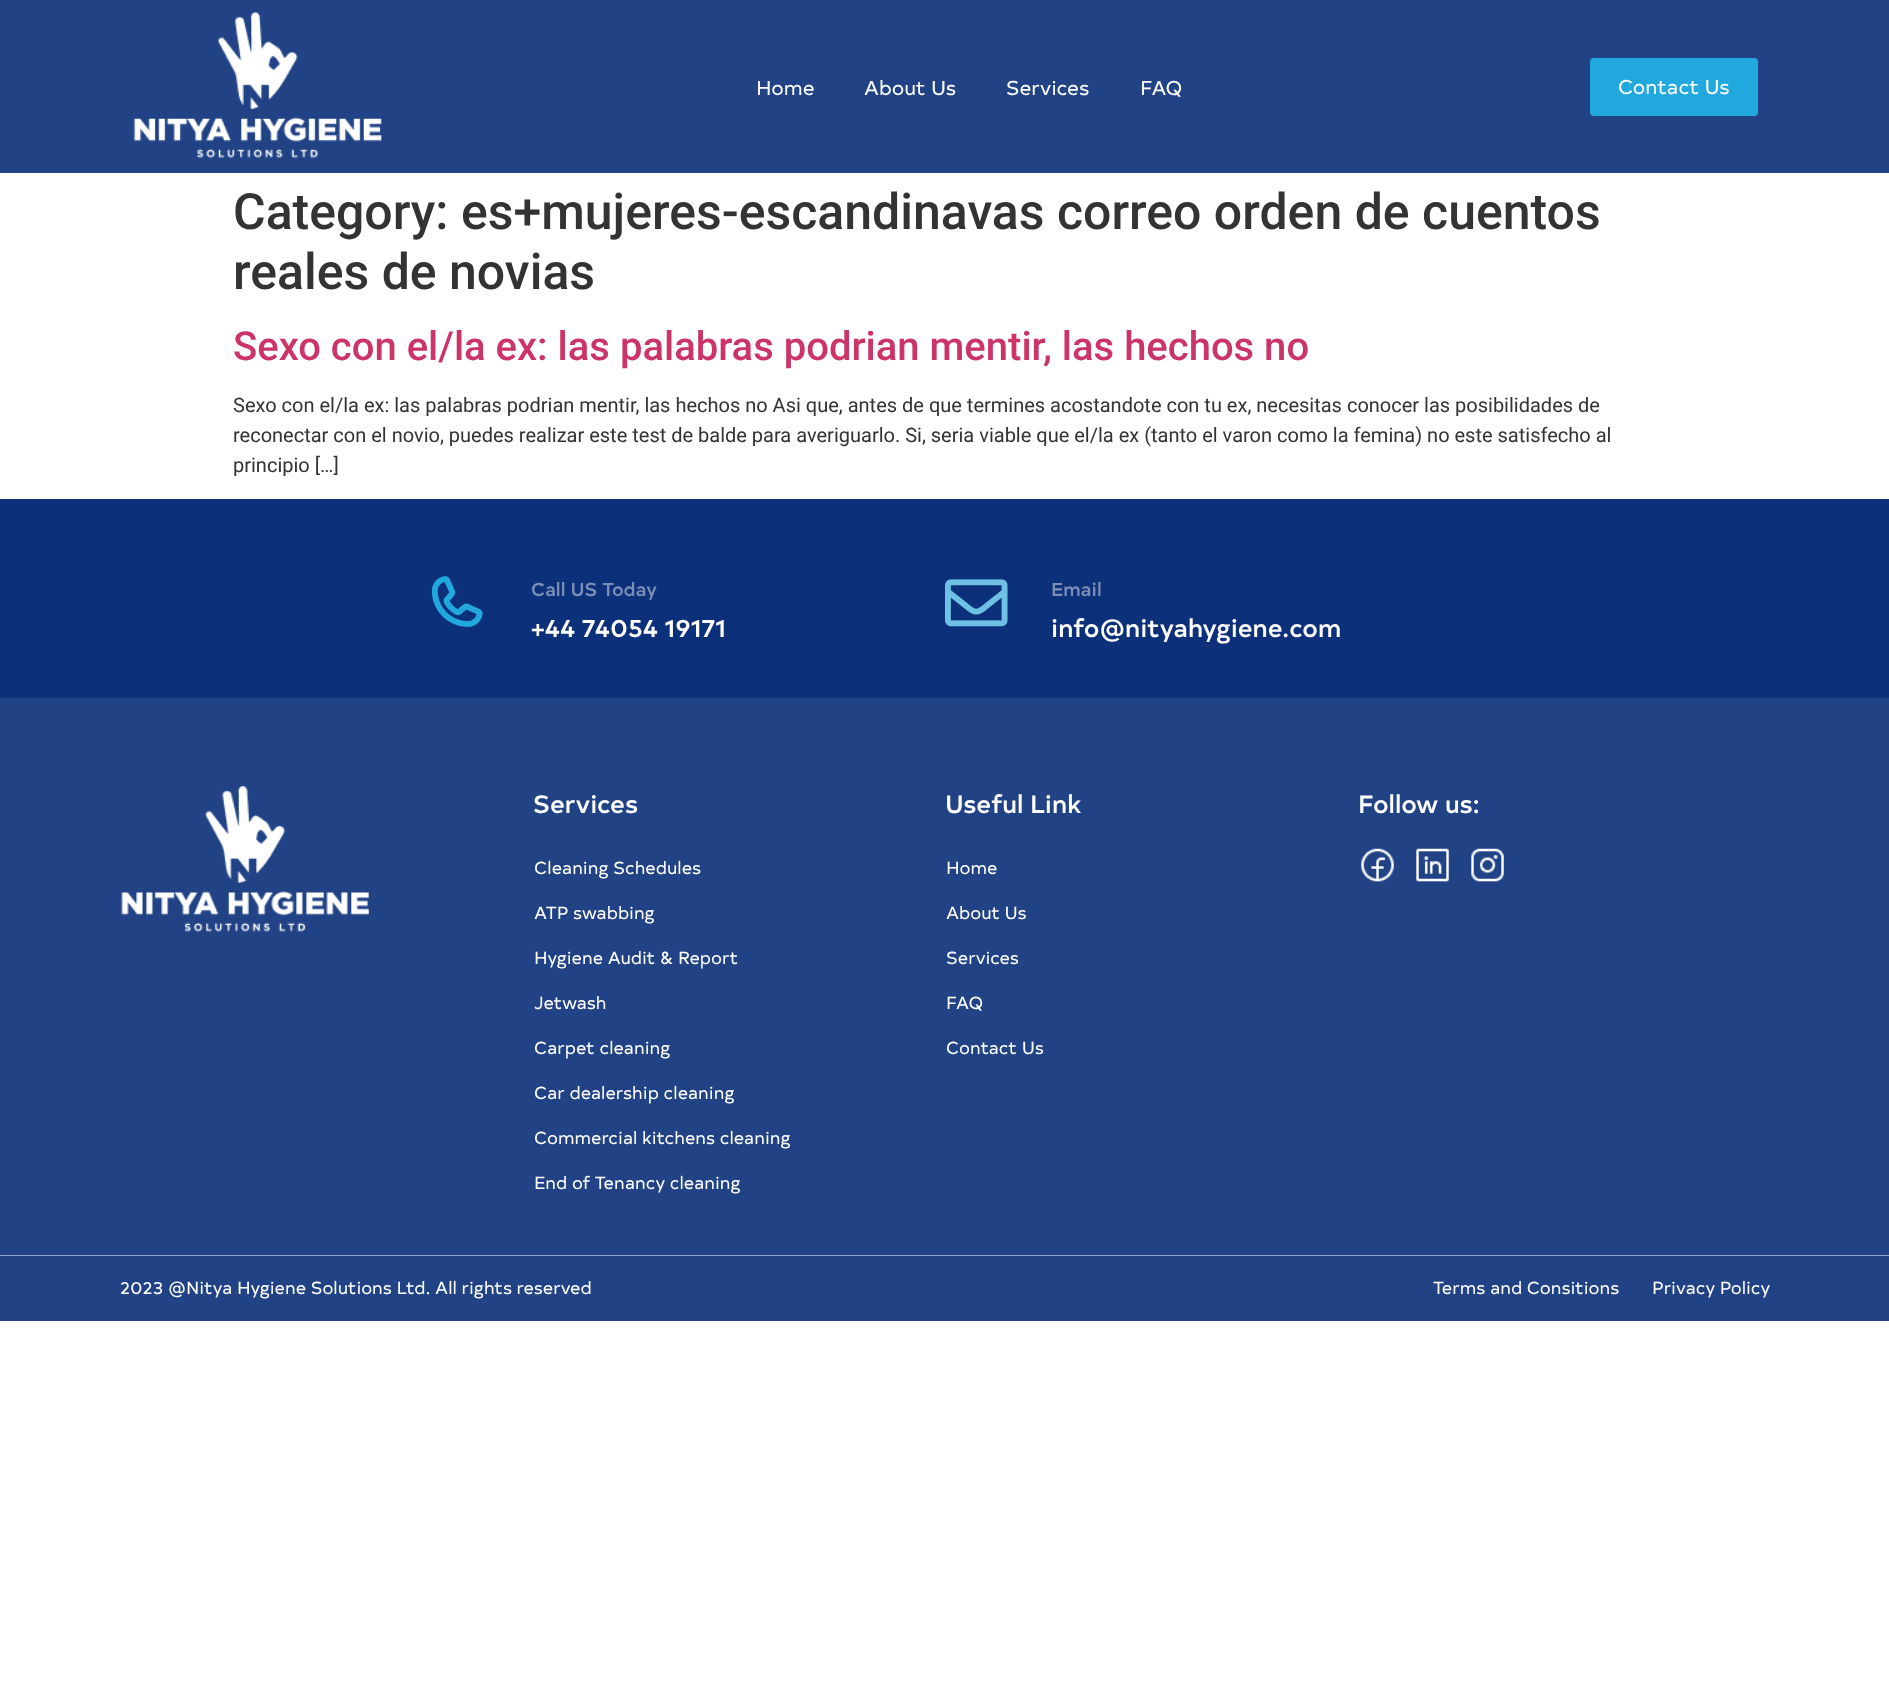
<svg xmlns="http://www.w3.org/2000/svg" width="1889" height="1686" viewBox="0 0 1889 1686">
  <style>
    .t1 { font: 20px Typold; fill: #fff; }
    .t2 { font: 500 50px Roboto; fill: #333; }
    .t3 { font: 500 40px Roboto; fill: #c36; }
    .t4 { font: 20px Roboto; fill: #333; }
    .t5 { font: 500 18.75px Typold; fill: #7c90b7; }
    .t6 { font: 500 25px Typold; fill: #fff; }
    .t7 { font: 17.5px Typold; fill: #fff; }
  </style>
  <rect width="100%" height="100%" fill="#fff"/>
  <rect x="0" y="0" width="1889" height="173" fill="#214285"/>
  <image x="133" y="12" width="249" height="146" href="images/1.png"/>
  <text x="756" y="95" class="t1">Home</text>
  <text x="864" y="95" class="t1">About Us</text>
  <text x="1006" y="95" class="t1">Services</text>
  <text x="1140" y="95" class="t1">FAQ</text>
  <rect x="1590" y="58" width="168" height="58" rx="4" fill="#21a8dd"/>
  <text x="1618" y="94" class="t1">Contact Us</text>
  <text x="233" y="229" class="t2">Category: es+mujeres-escandinavas correo orden de cuentos</text>
  <text x="233" y="289" class="t2">reales de novias</text>
  <text x="233" y="360" class="t3">Sexo con el/la ex: las palabras podrian mentir, las hechos no</text>
  <text x="233" y="412" class="t4">Sexo con el/la ex: las palabras podrian mentir, las hechos no Asi que, antes de que termines acostandote con tu ex, necesitas conocer las posibilidades de</text>
  <text x="233" y="442" class="t4">reconectar con el novio, puedes realizar este test de balde para averiguarlo. Si, seria viable que el/la ex (tanto el varon como la femina) no este satisfecho al</text>
  <text x="233" y="472" class="t4">principio […]</text>
  <rect x="0" y="499" width="1889" height="199" fill="#0c317a"/>
  <image x="431" y="576" width="52" height="51" href="images/2.png"/>
  <text x="531" y="596" class="t5">Call US Today</text>
  <text x="531" y="637" class="t6">+44 74054 19171</text>
  <image x="945" y="579" width="63" height="48" href="images/3.png"/>
  <text x="1051" y="596" class="t5">Email</text>
  <text x="1051" y="637" class="t6">info@nityahygiene.com</text>
  <rect x="0" y="698" width="1889" height="557" fill="#214285"/>
  <image x="121" y="786" width="248" height="146" href="images/4.png"/>
  <text x="533" y="813" class="t6">Services</text>
  <text x="534" y="874" class="t7">Cleaning Schedules</text>
  <text x="534" y="919" class="t7">ATP swabbing</text>
  <text x="534" y="964" class="t7">Hygiene Audit &amp; Report</text>
  <text x="534" y="1009" class="t7">Jetwash</text>
  <text x="534" y="1054" class="t7">Carpet cleaning</text>
  <text x="534" y="1099" class="t7">Car dealership cleaning</text>
  <text x="534" y="1144" class="t7">Commercial kitchens cleaning</text>
  <text x="534" y="1189" class="t7">End of Tenancy cleaning</text>
  <text x="945" y="813" class="t6">Useful Link</text>
  <text x="946" y="874" class="t7">Home</text>
  <text x="946" y="919" class="t7">About Us</text>
  <text x="946" y="964" class="t7">Services</text>
  <text x="946" y="1009" class="t7">FAQ</text>
  <text x="946" y="1054" class="t7">Contact Us</text>
  <text x="1358" y="813" class="t6">Follow us:</text>
  <image x="1361" y="848" width="33" height="34" href="images/5.png"/>
  <image x="1416" y="848" width="33" height="34" href="images/6.png"/>
  <image x="1471" y="848" width="33" height="34" href="images/7.png"/>
  <rect x="0" y="1256" width="1889" height="65" fill="#214285"/>
  <rect x="0" y="1255" width="1889" height="1" fill="#90a1c2"/>
  <text x="120" y="1294" class="t7">2023 @Nitya Hygiene Solutions Ltd. All rights reserved</text>
  <text x="1433" y="1294" class="t7">Terms and Consitions</text>
  <text x="1652" y="1294" class="t7">Privacy Policy</text>
</svg>
